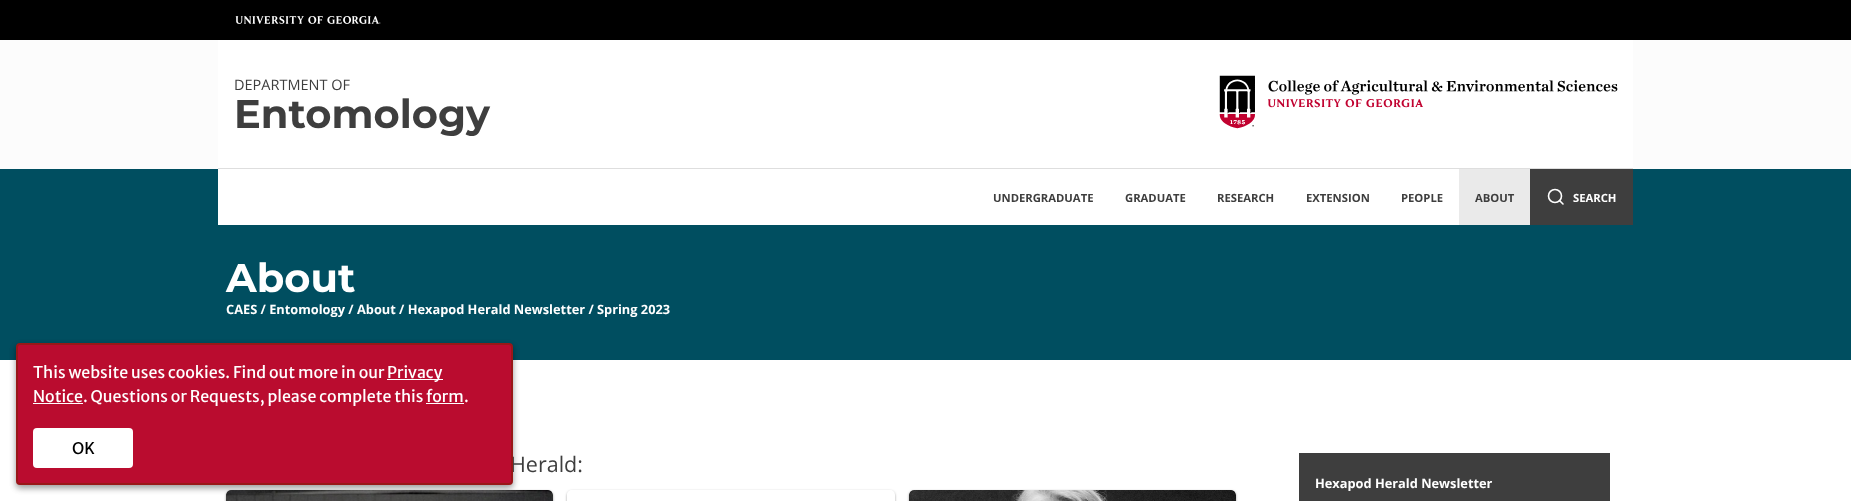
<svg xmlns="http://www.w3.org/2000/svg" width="1851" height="501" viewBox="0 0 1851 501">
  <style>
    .t1 { font: 14.5px Open Sans; fill: #3e3e3e; }
    .t2 { font: 100 40px Montserrat; fill: #3e3e3e; }
    .t3 { font: bold 11.25px Open Sans; fill: #3e3e3e; }
    .t4 { font: bold 11.25px Open Sans; fill: #fff; }
    .t5 { font: 100 40px Montserrat; fill: #fff; }
    .t6 { font: bold 12.8px Open Sans; fill: #fff; }
    .t7 { font: 21.5px Open Sans; fill: #3e3e3e; }
    .t8 { font: 16px Merriweather Sans; fill: #fff; }
    .t9 { font: 16px Merriweather Sans; fill: #000; }
  </style>
  <defs>
    <clipPath id="clip1"><path d="M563 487H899V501H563ZM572 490H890C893 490 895 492 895 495V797C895 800 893 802 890 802H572C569 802 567 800 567 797V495C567 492 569 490 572 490Z" clip-rule="evenodd"/></clipPath>
    <clipPath id="clip2"><path d="M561 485H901V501H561ZM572 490H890C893 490 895 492 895 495V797C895 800 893 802 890 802H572C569 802 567 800 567 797V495C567 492 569 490 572 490Z" clip-rule="evenodd"/></clipPath>
  </defs>
  <rect width="100%" height="100%" fill="#fff"/>
  <rect x="0" y="0" width="1851" height="40" fill="#000"/>
  <image x="235" y="16" width="146" height="8" href="images/1.png"/>
  <rect x="0" y="40" width="1851" height="129" fill="#fcfcfc"/>
  <rect x="0" y="169" width="1851" height="191" fill="#004e60"/>
  <rect x="218" y="40" width="1415" height="185" fill="#fff"/>
  <text x="234" y="90" class="t1">DEPARTMENT OF</text>
  <text x="234" y="128" class="t2">Entomology</text>
  <image x="1219" y="75" width="399" height="54" href="images/2.png"/>
  <rect x="218" y="168" width="1415" height="1" fill="#dedede"/>
  <text x="993" y="202" class="t3">UNDERGRADUATE</text>
  <text x="1125" y="202" class="t3">GRADUATE</text>
  <text x="1217" y="202" class="t3">RESEARCH</text>
  <text x="1306" y="202" class="t3">EXTENSION</text>
  <text x="1401" y="202" class="t3">PEOPLE</text>
  <rect x="1459" y="169" width="71" height="56" fill="#eaeaea"/>
  <text x="1475" y="202" class="t3">ABOUT</text>
  <rect x="1530" y="169" width="103" height="56" fill="#3e3e3e"/>
  <circle cx="1555" cy="196" r="6.5" fill="none" stroke="#fff" stroke-width="1.6"/>
  <path d="M1563 204L1559.5 200.5" fill="none" stroke="#fff" stroke-width="1.6" stroke-linecap="round" stroke-linejoin="round"/>
  <text x="1573" y="202" class="t4">SEARCH</text>
  <text x="226" y="292" class="t5">About</text>
  <text x="226" y="314" class="t6">CAES / Entomology / About / Hexapod Herald Newsletter / Spring 2023</text>
  <rect x="226" y="491" width="327" height="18" rx="5" fill="#0000003d" filter="blur(1px)"/>
  <rect x="226" y="491" width="327" height="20" rx="5" fill="#0000001f" filter="blur(1.5px)"/>
  <image x="226" y="490" width="327" height="11" href="images/3.png"/>
  <rect x="16" y="346" width="497" height="142" rx="4" fill="#00000040" filter="blur(3px)"/>
  <rect x="16" y="346" width="497" height="142" rx="4" fill="#0000002e" filter="blur(3px)"/>
  <text x="510" y="472" class="t7">Herald:</text>
  <rect x="17" y="344" width="495" height="140" rx="3" fill="#ba0c2f" stroke="#991718" stroke-width="2"/>
  <text x="33" y="378" class="t8">This website uses cookies. Find out more in our</text>
  <rect x="387" y="379" width="56" height="1" fill="#fefefe"/>
  <text x="387" y="378" class="t8">Privacy</text>
  <text x="33" y="402" class="t8">Notice</text>
  <rect x="33" y="403" width="50" height="1" fill="#fefefe"/>
  <text x="83" y="402" class="t8">. Questions or Requests, please complete this</text>
  <text x="426" y="402" class="t8">form</text>
  <rect x="426" y="403" width="38" height="1" fill="#fefefe"/>
  <text x="464" y="402" class="t8">.</text>
  <rect x="33" y="428" width="100" height="40" rx="4" fill="#fff"/>
  <text x="72" y="454" class="t9">OK</text>
  <g clip-path="url(#clip1)">
    <rect x="567" y="491" width="328" height="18" rx="5" fill="#0000003d" filter="blur(1px)"/>
  </g>
  <g clip-path="url(#clip2)">
    <rect x="567" y="491" width="328" height="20" rx="5" fill="#0000001f" filter="blur(1.5px)"/>
  </g>
  <rect x="567" y="493" width="1" height="1" fill="#fcfcfc"/>
  <rect x="909" y="491" width="327" height="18" rx="5" fill="#0000003d" filter="blur(1px)"/>
  <rect x="909" y="491" width="327" height="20" rx="5" fill="#0000001f" filter="blur(1.5px)"/>
  <image x="909" y="490" width="327" height="11" href="images/4.png"/>
  <rect x="1299" y="453" width="311" height="48" fill="#3e3e3e"/>
  <text x="1315" y="488" class="t6">Hexapod Herald Newsletter</text>
</svg>
